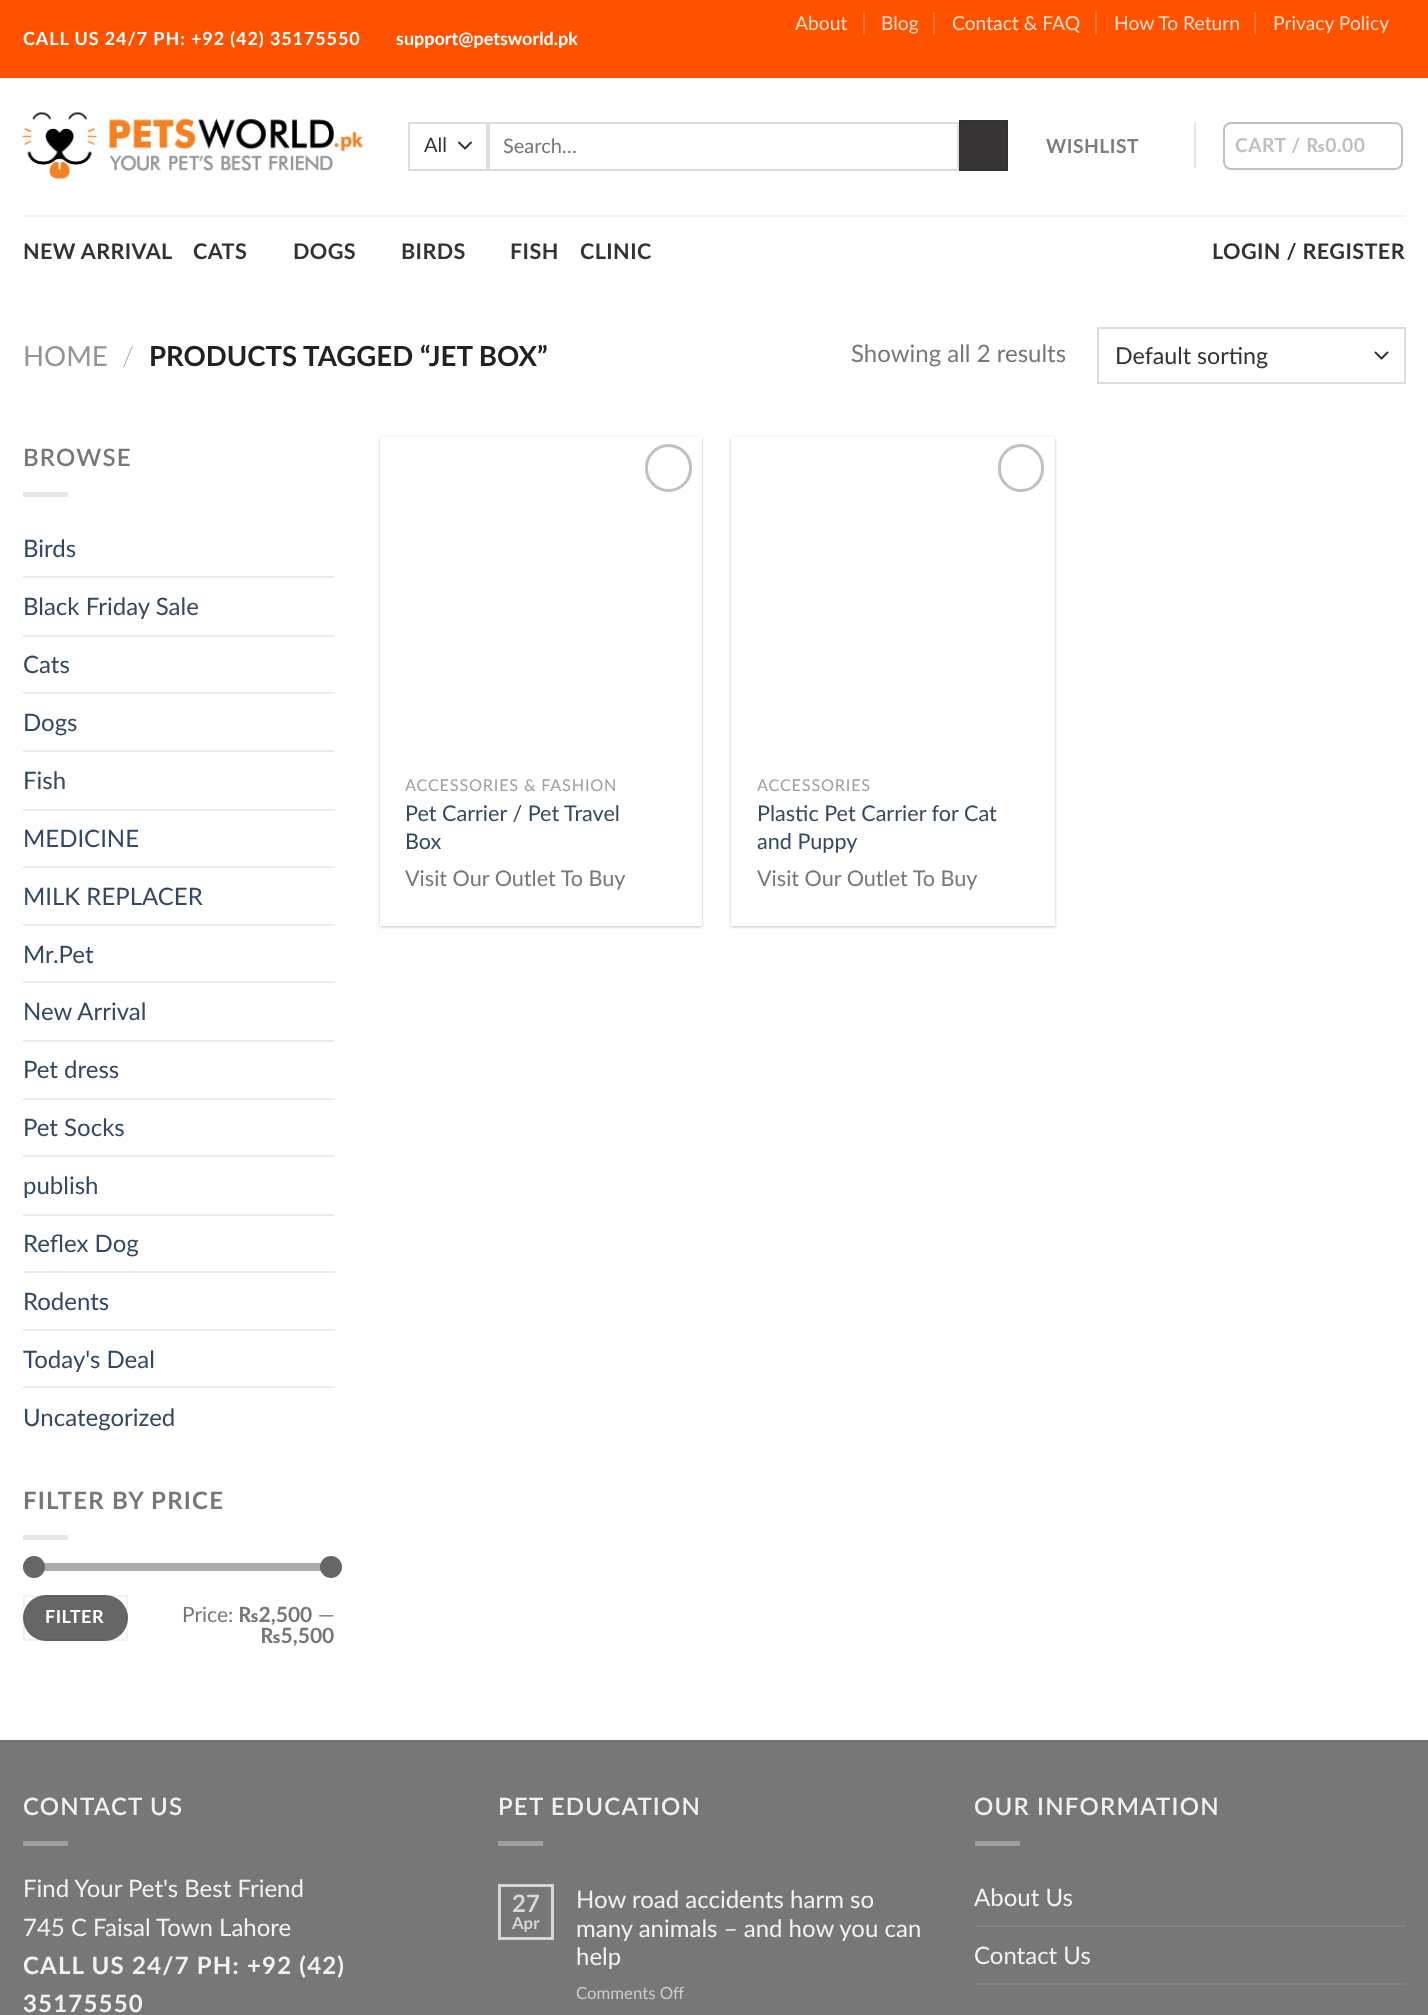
<svg xmlns="http://www.w3.org/2000/svg" width="1428" height="2015" viewBox="0 0 1428 2015">
  <style>
    .t1 { font: 19.25px Lato; fill: #ffdccc; }
    .t2 { font: bold 18px Lato; letter-spacing: 0.9px; fill: #fff; }
    .t3 { font: bold 18px Lato; fill: #fff; }
    .t4 { font: 20px Lato; fill: #333; }
    .t5 { font: 20px Lato; fill: #777; }
    .t6 { font: bold 19.25px Lato; letter-spacing: 0.5px; fill: #7d7d7d; }
    .t7 { font: bold 19.25px Lato; letter-spacing: 0.5px; fill: #c0c0c0; }
    .t8 { font: bold 21.6px Lato; letter-spacing: 0.4px; fill: #333; }
    .t9 { font: 27.6px Lato; fill: #949494; }
    .t10 { font: 300 27.6px Lato; fill: #b2b2b2; }
    .t11 { font: bold 27.6px Lato; fill: #222; }
    .t12 { font: 24px Lato; fill: #777; }
    .t13 { font: 23.25px Lato; fill: #333; }
    .t14 { font: 600 24px Lato; letter-spacing: 1.2px; fill: #777; }
    .t15 { font: 24px Lato; fill: #334862; }
    .t16 { font: bold 24px Lato; letter-spacing: 1.2px; fill: #777; }
    .t17 { font: bold 18px Lato; letter-spacing: 0.5px; fill: #fff; }
    .t18 { font: 21px Lato; fill: #777; }
    .t19 { font: bold 21px Lato; fill: #777; }
    .t20 { font: 16.25px Lato; letter-spacing: 0.8px; fill: #a0a0a0; }
    .t21 { font: 21.6px Lato; fill: #334862; }
    .t22 { font: 21.6px Lato; fill: #777; }
    .t23 { font: 600 24px Lato; letter-spacing: 1.2px; fill: #f1f1f1; }
    .t24 { font: 24px Lato; fill: #f1f1f1; }
    .t25 { font: bold 24px Lato; letter-spacing: 1.2px; fill: #f1f1f1; }
    .t26 { font: bold 24px Lato; fill: #d6d6d6; }
    .t27 { font: bold 16.75px Lato; fill: #d6d6d6; }
    .t28 { font: 16.75px Lato; fill: #ccc; }
  </style>
  <rect width="100%" height="100%" fill="#fff"/>
  <rect x="0" y="0" width="1428" height="78" fill="#ff5200"/>
  <text x="795" y="30" class="t1">About</text>
  <rect x="863" y="12" width="2" height="23" fill="#ff7533"/>
  <text x="881" y="30" class="t1">Blog</text>
  <rect x="933" y="12" width="2" height="23" fill="#ff7533"/>
  <text x="952" y="30" class="t1">Contact &amp; FAQ</text>
  <rect x="1095" y="12" width="2" height="23" fill="#ff7533"/>
  <text x="1114" y="30" class="t1">How To Return</text>
  <rect x="1254" y="12" width="2" height="23" fill="#ff7533"/>
  <text x="1273" y="30" class="t1">Privacy Policy</text>
  <text x="23" y="45" class="t2">CALL US 24/7 PH: +92 (42) 35175550</text>
  <text x="396" y="45" class="t3">support@petsworld.pk</text>
  <image x="22" y="112" width="341" height="67" href="images/1.png"/>
  <path d="M459 142.5L465 148.5L471 142.5" fill="none" stroke="#333" stroke-width="2" stroke-linecap="round" stroke-linejoin="round"/>
  <rect x="409" y="123" width="78" height="47" fill="none" stroke="#ddd" stroke-width="2"/>
  <text x="424" y="152" class="t4">All</text>
  <rect x="489" y="123" width="469" height="47" fill="none" stroke="#ddd" stroke-width="2"/>
  <text x="503" y="153" class="t5">Search…</text>
  <rect x="960" y="121" width="47" height="49" fill="#373435" stroke="#343132" stroke-width="2"/>
  <text x="1046" y="153" class="t6">WISHLIST</text>
  <rect x="1194" y="123" width="2" height="45" fill="#e6e6e6"/>
  <rect x="1224" y="123" width="178" height="46" rx="7" fill="none" stroke="#c0c0c0" stroke-width="2"/>
  <text x="1235" y="152" class="t7">CART / ₨0.00</text>
  <rect x="23" y="215" width="1383" height="2" fill="#f1f1f1"/>
  <text x="23" y="259" class="t8">NEW ARRIVAL</text>
  <text x="193" y="259" class="t8">CATS</text>
  <text x="293" y="259" class="t8">DOGS</text>
  <text x="401" y="259" class="t8">BIRDS</text>
  <text x="510" y="259" class="t8">FISH</text>
  <text x="580" y="259" class="t8">CLINIC</text>
  <text x="1212" y="259" class="t8">LOGIN / REGISTER</text>
  <text x="23" y="366" class="t9">HOME</text>
  <text x="122" y="366" class="t10">/</text>
  <text x="149" y="366" class="t11">PRODUCTS TAGGED “JET BOX”</text>
  <text x="851" y="362" class="t12">Showing all 2 results</text>
  <path d="M1375.5 352.5L1381.5 358.5L1387.5 352.5" fill="none" stroke="#333" stroke-width="2" stroke-linecap="round" stroke-linejoin="round"/>
  <rect x="1098" y="328" width="307" height="55" fill="none" stroke="#ddd" stroke-width="2"/>
  <text x="1115" y="364" class="t13">Default sorting</text>
  <text x="23" y="466" class="t14">BROWSE</text>
  <rect x="23" y="492" width="45" height="5" fill="#e6e6e6"/>
  <text x="23" y="557" class="t15">Birds</text>
  <rect x="23" y="576" width="312" height="2" fill="#ececec"/>
  <text x="23" y="615" class="t15">Black Friday Sale</text>
  <rect x="23" y="635" width="312" height="2" fill="#ececec"/>
  <text x="23" y="673" class="t15">Cats</text>
  <rect x="23" y="692" width="312" height="2" fill="#ececec"/>
  <text x="23" y="731" class="t15">Dogs</text>
  <rect x="23" y="750" width="312" height="2" fill="#ececec"/>
  <text x="23" y="789" class="t15">Fish</text>
  <rect x="23" y="809" width="312" height="2" fill="#ececec"/>
  <text x="23" y="847" class="t15">MEDICINE</text>
  <rect x="23" y="866" width="312" height="2" fill="#ececec"/>
  <text x="23" y="905" class="t15">MILK REPLACER</text>
  <rect x="23" y="924" width="312" height="2" fill="#ececec"/>
  <text x="23" y="963" class="t15">Mr.Pet</text>
  <rect x="23" y="981" width="312" height="2" fill="#ececec"/>
  <text x="23" y="1020" class="t15">New Arrival</text>
  <rect x="23" y="1040" width="312" height="2" fill="#ececec"/>
  <text x="23" y="1078" class="t15">Pet dress</text>
  <rect x="23" y="1098" width="312" height="2" fill="#ececec"/>
  <text x="23" y="1136" class="t15">Pet Socks</text>
  <rect x="23" y="1155" width="312" height="2" fill="#ececec"/>
  <text x="23" y="1194" class="t15">publish</text>
  <rect x="23" y="1214" width="312" height="2" fill="#ececec"/>
  <text x="23" y="1252" class="t15">Reflex Dog</text>
  <rect x="23" y="1271" width="312" height="2" fill="#ececec"/>
  <text x="23" y="1310" class="t15">Rodents</text>
  <rect x="23" y="1329" width="312" height="2" fill="#ececec"/>
  <text x="23" y="1368" class="t15">Today's Deal</text>
  <rect x="23" y="1386" width="312" height="2" fill="#ececec"/>
  <text x="23" y="1426" class="t15">Uncategorized</text>
  <text x="23" y="1509" class="t16">FILTER BY PRICE</text>
  <rect x="23" y="1535" width="45" height="5" fill="#e6e6e6"/>
  <rect x="23" y="1563" width="312" height="8" rx="4" fill="#f1f1f1"/>
  <rect x="23" y="1563" width="312" height="8" rx="4" fill="#66666680"/>
  <circle cx="34" cy="1567" r="11" fill="#666"/>
  <circle cx="331" cy="1567" r="11" fill="#666"/>
  <rect x="23" y="1595" width="105" height="46" rx="23" fill="#666"/>
  <rect x="24" y="1596" width="103" height="44" fill="none" stroke="#0000000d" stroke-width="2"/>
  <text x="45" y="1623" class="t17">FILTER</text>
  <text x="182" y="1622" class="t18">Price:</text>
  <text x="238" y="1622" class="t19">₨2,500</text>
  <text x="318" y="1622" class="t18">—</text>
  <text x="260" y="1643" class="t19">₨5,500</text>
  <rect x="380" y="438" width="322" height="489" fill="#0000003d" filter="blur(1.5px)"/>
  <rect x="380" y="437" width="322" height="489" fill="#fff"/>
  <rect x="646.5" y="445.5" width="44" height="45" rx="22" fill="none" stroke="#c0c0c0" stroke-width="3"/>
  <text x="405" y="791" class="t20">ACCESSORIES &amp; FASHION</text>
  <text x="405" y="821" class="t21">Pet Carrier / Pet Travel</text>
  <text x="405" y="849" class="t21">Box</text>
  <text x="405" y="886" class="t22">Visit Our Outlet To Buy</text>
  <rect x="731" y="438" width="324" height="489" fill="#0000003d" filter="blur(1.5px)"/>
  <rect x="731" y="437" width="324" height="489" fill="#fff"/>
  <rect x="999.5" y="445.5" width="43" height="45" rx="21.5" fill="none" stroke="#c0c0c0" stroke-width="3"/>
  <text x="757" y="791" class="t20">ACCESSORIES</text>
  <text x="757" y="821" class="t21">Plastic Pet Carrier for Cat</text>
  <text x="757" y="849" class="t21">and Puppy</text>
  <text x="757" y="886" class="t22">Visit Our Outlet To Buy</text>
  <rect x="0" y="1742" width="1428" height="273" fill="#777"/>
  <rect x="0" y="1740" width="1428" height="2" fill="#717171"/>
  <text x="23" y="1815" class="t23">CONTACT US</text>
  <rect x="23" y="1841" width="45" height="5" fill="#a0a0a0"/>
  <text x="23" y="1897" class="t24">Find Your Pet's Best Friend</text>
  <text x="23" y="1936" class="t24">745 C Faisal Town Lahore</text>
  <text x="23" y="1974" class="t25">CALL US 24/7 PH: +92 (42)</text>
  <text x="23" y="2012" class="t25">35175550</text>
  <text x="498" y="1815" class="t23">PET EDUCATION</text>
  <rect x="498" y="1841" width="45" height="5" fill="#a0a0a0"/>
  <rect x="499.5" y="1885.5" width="53" height="53" fill="none" stroke="#d6d6d6" stroke-width="3"/>
  <text x="512" y="1912" class="t26">27</text>
  <text x="512" y="1929" class="t27">Apr</text>
  <text x="576" y="1908" class="t24">How road accidents harm so</text>
  <text x="576" y="1937" class="t24">many animals – and how you can</text>
  <text x="576" y="1965" class="t24">help</text>
  <text x="576" y="1999" class="t28">Comments Off</text>
  <text x="974" y="1815" class="t23">OUR INFORMATION</text>
  <rect x="975" y="1841" width="45" height="5" fill="#a0a0a0"/>
  <text x="974" y="1906" class="t24">About Us</text>
  <rect x="975" y="1925" width="431" height="2" fill="#828282"/>
  <text x="974" y="1964" class="t24">Contact Us</text>
  <rect x="975" y="1983" width="431" height="2" fill="#828282"/>
</svg>
